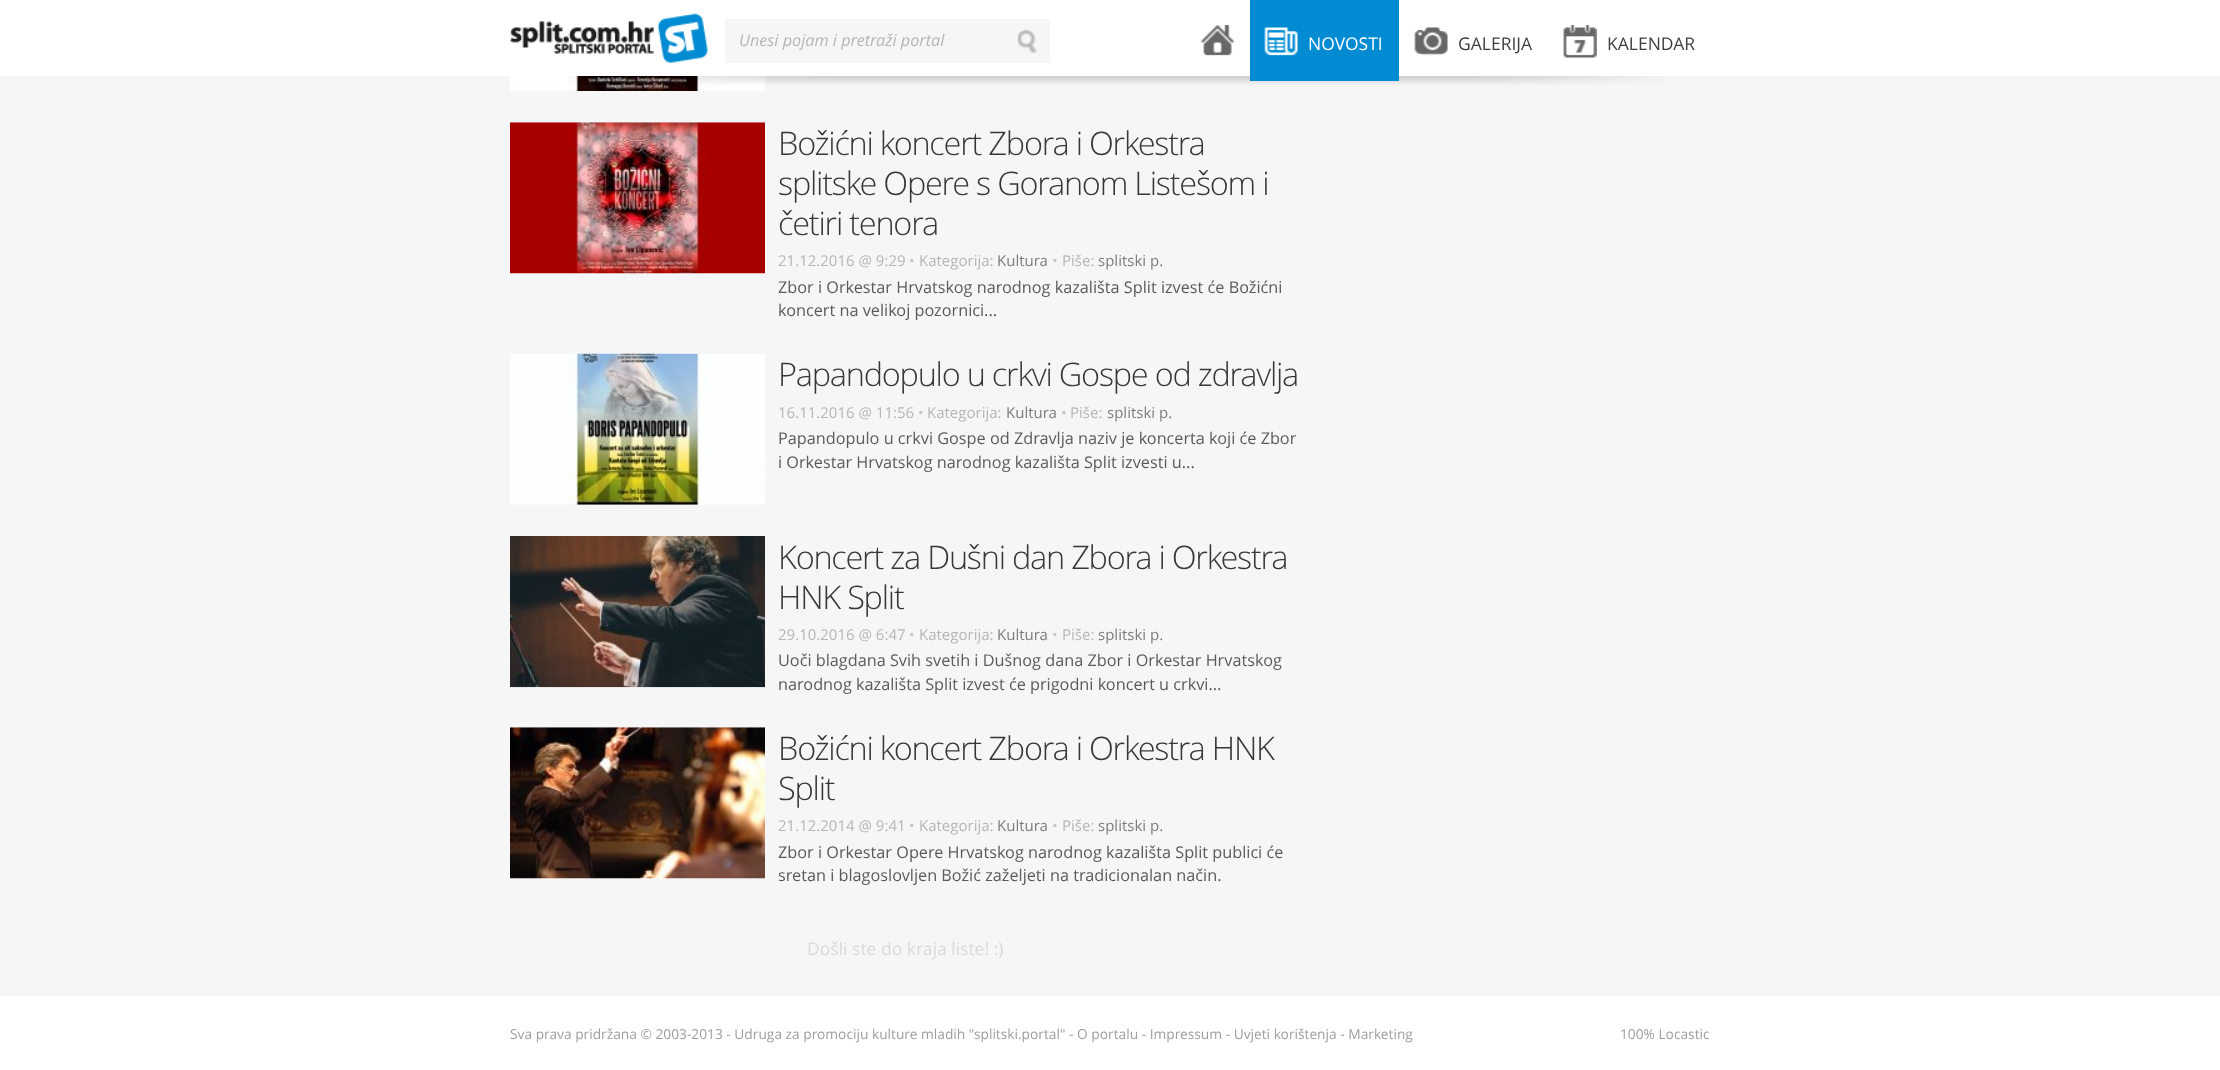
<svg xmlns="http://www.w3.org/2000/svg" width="2220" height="1070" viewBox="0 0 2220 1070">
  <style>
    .t1 { font: italic 16.25px Open Sans; fill: #b6b6b6; }
    .t2 { font: 17.5px Open Sans; fill: #fff; }
    .t3 { font: 17.5px Open Sans; fill: #3e3e3e; }
    .t4 { font: 300 32.5px Open Sans; letter-spacing: -1.25px; fill: #373737; }
    .t5 { font: 15px Open Sans; fill: #b6b6b6; }
    .t6 { font: 15px Open Sans; fill: #c6c6c6; }
    .t7 { font: 15px Open Sans; fill: #7c7c7c; }
    .t8 { font: 16.25px Open Sans; fill: #5b5b5b; }
    .t9 { font: 17.5px Open Sans; fill: #dad9d9; }
    .t10 { font: 13.75px Open Sans; fill: #9e9e9e; }
  </style>
  <rect width="100%" height="100%" fill="#f6f6f6"/>
  <rect x="0" y="0" width="2220" height="76" fill="#fff"/>
  <image x="510" y="13" width="198" height="50" href="images/1.png"/>
  <rect x="725" y="19" width="325" height="44" fill="#f6f6f6"/>
  <text x="739" y="46" class="t1">Unesi pojam i pretraži portal</text>
  <image x="1018" y="30" width="19" height="23" href="images/2.png"/>
  <image x="1200" y="25" width="35" height="31" href="images/3.png"/>
  <image x="510" y="76" width="255" height="15" href="images/8.png"/>
  <image x="569" y="76" width="1094" height="9" href="images/7.png"/>
  <rect x="1250" y="0" width="149" height="81" fill="#008bd2"/>
  <image x="1264" y="27" width="34" height="29" href="images/4.png"/>
  <text x="1308" y="50" class="t2">NOVOSTI</text>
  <image x="1414" y="27" width="34" height="29" href="images/5.png"/>
  <text x="1458" y="50" class="t3">GALERIJA</text>
  <image x="1563" y="25" width="34" height="33" href="images/6.png"/>
  <text x="1607" y="50" class="t3">KALENDAR</text>
  <image x="510" y="122" width="255" height="152" href="images/9.png"/>
  <text x="778" y="155" class="t4">Božićni koncert Zbora i Orkestra</text>
  <text x="778" y="195" class="t4">splitske Opere s Goranom Listešom i</text>
  <text x="778" y="235" class="t4">četiri tenora</text>
  <text x="778" y="266" class="t5">21.12.2016 @ 9:29</text>
  <text x="909" y="266" class="t6">•</text>
  <text x="919" y="266" class="t5">Kategorija:</text>
  <text x="997" y="266" class="t7">Kultura</text>
  <text x="1052" y="266" class="t6">•</text>
  <text x="1062" y="266" class="t5">Piše:</text>
  <text x="1098" y="266" class="t7">splitski p.</text>
  <text x="778" y="293" class="t8">Zbor i Orkestar Hrvatskog narodnog kazališta Split izvest će Božićni</text>
  <text x="778" y="316" class="t8">koncert na velikoj pozornici...</text>
  <image x="510" y="353" width="255" height="152" href="images/10.png"/>
  <text x="778" y="386" class="t4">Papandopulo u crkvi Gospe od zdravlja</text>
  <text x="778" y="418" class="t5">16.11.2016 @ 11:56</text>
  <text x="918" y="418" class="t6">•</text>
  <text x="927" y="418" class="t5">Kategorija:</text>
  <text x="1006" y="418" class="t7">Kultura</text>
  <text x="1061" y="418" class="t6">•</text>
  <text x="1070" y="418" class="t5">Piše:</text>
  <text x="1107" y="418" class="t7">splitski p.</text>
  <text x="778" y="444" class="t8">Papandopulo u crkvi Gospe od Zdravlja naziv je koncerta koji će Zbor</text>
  <text x="778" y="468" class="t8">i Orkestar Hrvatskog narodnog kazališta Split izvesti u...</text>
  <image x="510" y="536" width="255" height="152" href="images/11.png"/>
  <text x="778" y="569" class="t4">Koncert za Dušni dan Zbora i Orkestra</text>
  <text x="778" y="609" class="t4">HNK Split</text>
  <text x="778" y="640" class="t5">29.10.2016 @ 6:47</text>
  <text x="909" y="640" class="t6">•</text>
  <text x="919" y="640" class="t5">Kategorija:</text>
  <text x="997" y="640" class="t7">Kultura</text>
  <text x="1052" y="640" class="t6">•</text>
  <text x="1062" y="640" class="t5">Piše:</text>
  <text x="1098" y="640" class="t7">splitski p.</text>
  <text x="778" y="666" class="t8">Uoči blagdana Svih svetih i Dušnog dana Zbor i Orkestar Hrvatskog</text>
  <text x="778" y="690" class="t8">narodnog kazališta Split izvest će prigodni koncert u crkvi...</text>
  <image x="510" y="727" width="255" height="152" href="images/12.png"/>
  <text x="778" y="760" class="t4">Božićni koncert Zbora i Orkestra HNK</text>
  <text x="778" y="800" class="t4">Split</text>
  <text x="778" y="831" class="t5">21.12.2014 @ 9:41</text>
  <text x="909" y="831" class="t6">•</text>
  <text x="919" y="831" class="t5">Kategorija:</text>
  <text x="997" y="831" class="t7">Kultura</text>
  <text x="1052" y="831" class="t6">•</text>
  <text x="1062" y="831" class="t5">Piše:</text>
  <text x="1098" y="831" class="t7">splitski p.</text>
  <text x="778" y="858" class="t8">Zbor i Orkestar Opere Hrvatskog narodnog kazališta Split publici će</text>
  <text x="778" y="881" class="t8">sretan i blagoslovljen Božić zaželjeti na tradicionalan način.</text>
  <text x="807" y="955" class="t9">Došli ste do kraja liste! :)</text>
  <rect x="0" y="996" width="2220" height="74" fill="#fff"/>
  <text x="510" y="1039" class="t10">Sva prava pridržana © 2003-2013 - Udruga za promociju kulture mladih "splitski.portal" - O portalu - Impressum - Uvjeti korištenja - Marketing</text>
  <text x="1620" y="1039" class="t10">100% Locastic</text>
</svg>
